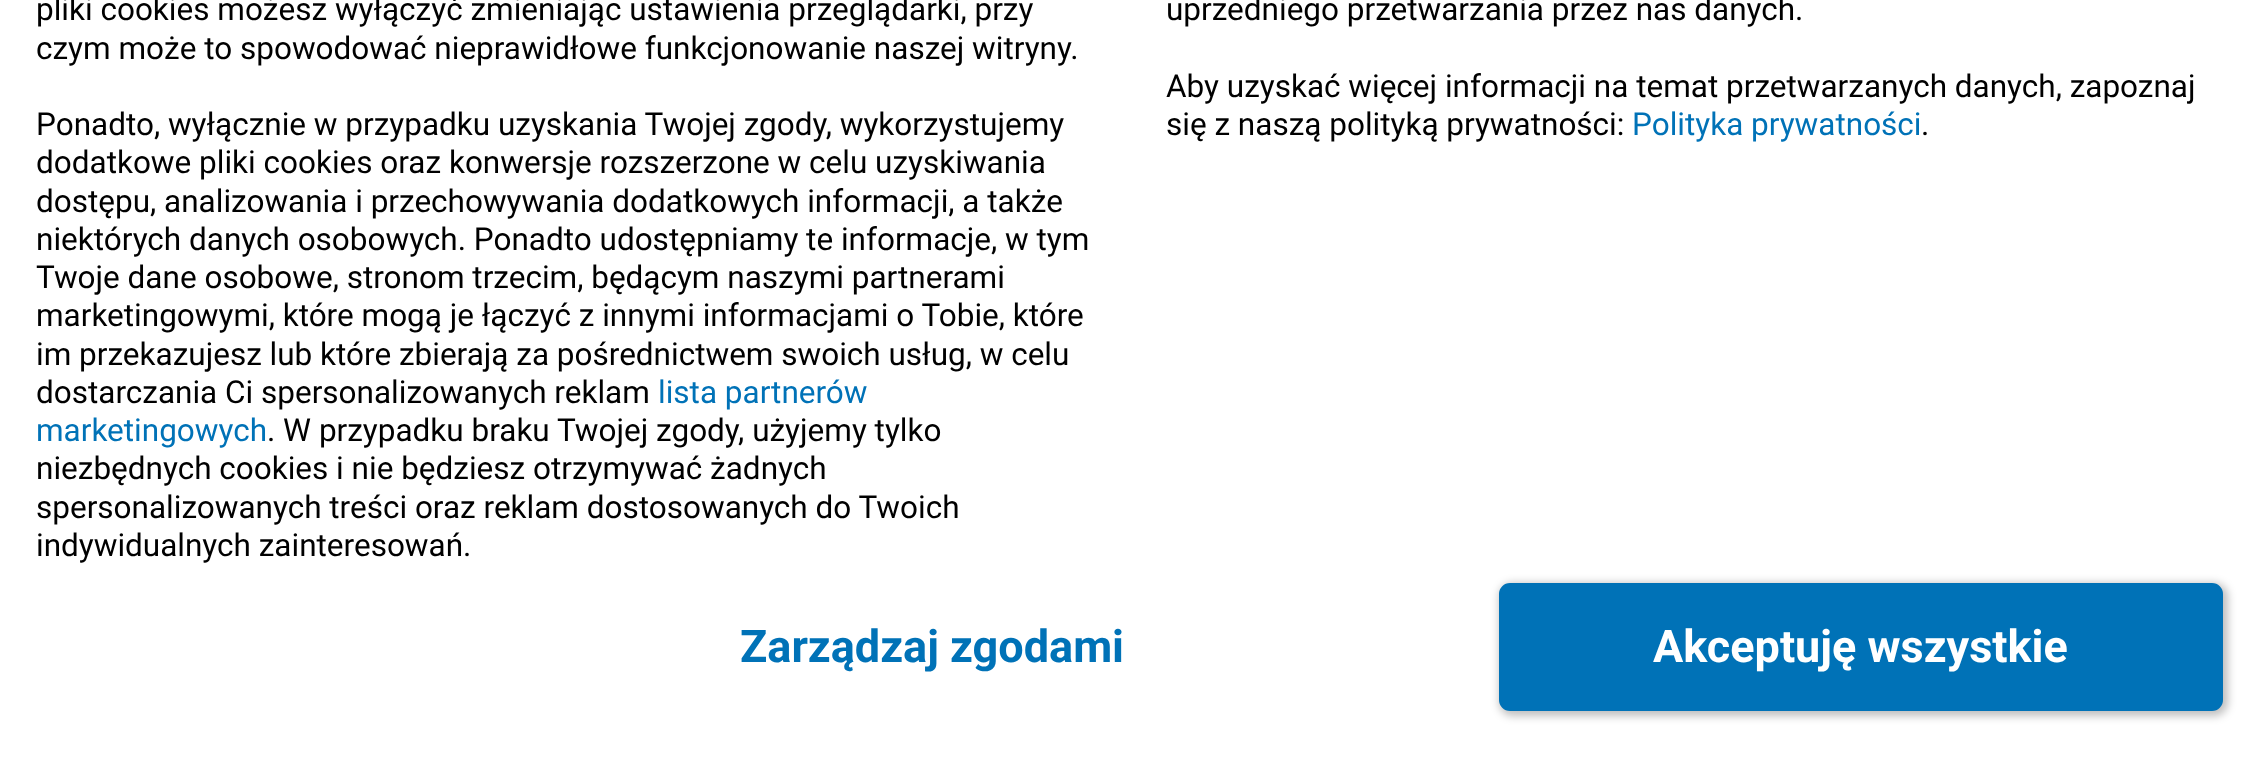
<svg xmlns="http://www.w3.org/2000/svg" width="2259" height="763" viewBox="0 0 2259 763">
  <style>
    .t1 { font: 31.5px Roboto; fill: #000; }
    .t2 { font: 31.5px Roboto; fill: #0072b7; }
    .t3 { font: bold 45px Roboto; fill: #0072b7; }
    .t4 { font: bold 45px Roboto; fill: #fff; }
  </style>
  <rect width="100%" height="100%" fill="#fff"/>
  <text x="36" y="20" class="t1">pliki cookies możesz wyłączyć zmieniając ustawienia przeglądarki, przy</text>
  <text x="36" y="59" class="t1">czym może to spowodować nieprawidłowe funkcjonowanie naszej witryny.</text>
  <text x="36" y="135" class="t1">Ponadto, wyłącznie w przypadku uzyskania Twojej zgody, wykorzystujemy</text>
  <text x="36" y="173" class="t1">dodatkowe pliki cookies oraz konwersje rozszerzone w celu uzyskiwania</text>
  <text x="36" y="212" class="t1">dostępu, analizowania i przechowywania dodatkowych informacji, a także</text>
  <text x="36" y="250" class="t1">niektórych danych osobowych. Ponadto udostępniamy te informacje, w tym</text>
  <text x="36" y="288" class="t1">Twoje dane osobowe, stronom trzecim, będącym naszymi partnerami</text>
  <text x="36" y="326" class="t1">marketingowymi, które mogą je łączyć z innymi informacjami o Tobie, które</text>
  <text x="36" y="365" class="t1">im przekazujesz lub które zbierają za pośrednictwem swoich usług, w celu</text>
  <text x="36" y="403" class="t1">dostarczania Ci spersonalizowanych reklam</text>
  <text x="658" y="403" class="t2">lista partnerów</text>
  <text x="36" y="441" class="t2">marketingowych</text>
  <text x="267" y="441" class="t1">. W przypadku braku Twojej zgody, użyjemy tylko</text>
  <text x="36" y="479" class="t1">niezbędnych cookies i nie będziesz otrzymywać żadnych</text>
  <text x="36" y="518" class="t1">spersonalizowanych treści oraz reklam dostosowanych do Twoich</text>
  <text x="36" y="556" class="t1">indywidualnych zainteresowań.</text>
  <text x="1166" y="20" class="t1">uprzedniego przetwarzania przez nas danych.</text>
  <text x="1166" y="97" class="t1">Aby uzyskać więcej informacji na temat przetwarzanych danych, zapoznaj</text>
  <text x="1166" y="135" class="t1">się z naszą polityką prywatności:</text>
  <text x="1632" y="135" class="t2">Polityka prywatności</text>
  <text x="1921" y="135" class="t1">.</text>
  <text x="740" y="662" class="t3">Zarządzaj zgodami</text>
  <rect x="1499" y="583" width="729" height="133" rx="14" fill="#00000040" filter="blur(4.5px)"/>
  <rect x="1500" y="584" width="722" height="126" rx="10" fill="#0072b7" stroke="#0072b7" stroke-width="2"/>
  <text x="1653" y="662" class="t4">Akceptuję wszystkie</text>
</svg>
